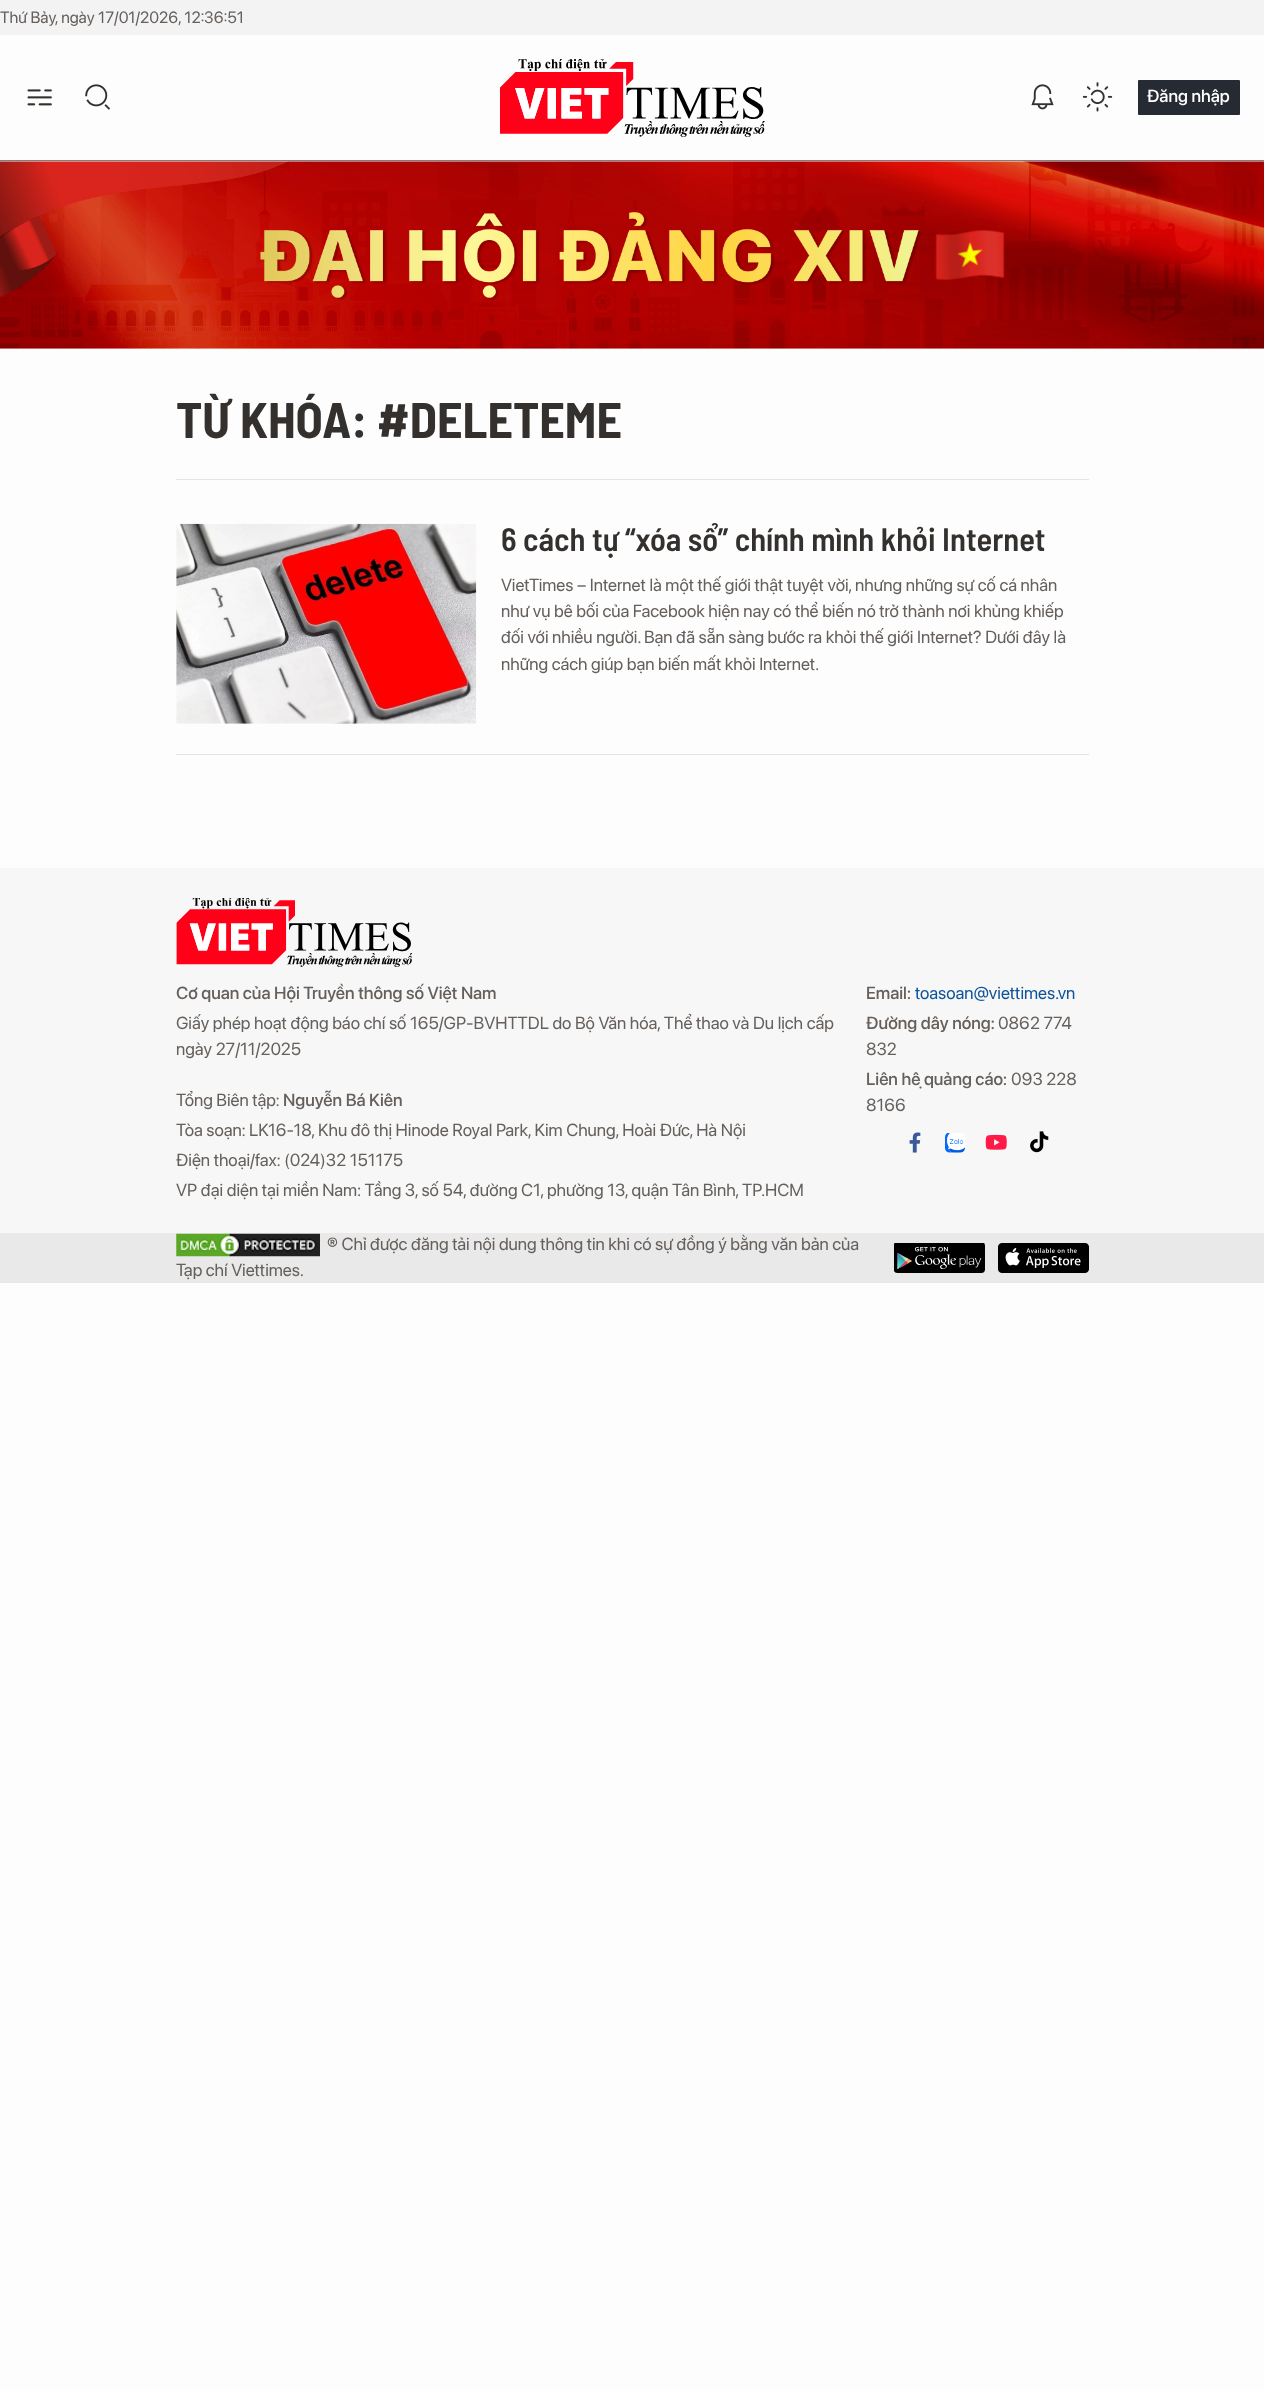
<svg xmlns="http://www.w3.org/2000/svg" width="1264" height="2391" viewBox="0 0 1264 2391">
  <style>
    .t1 { font: 16.25px SF Pro Display; fill: #66605c; }
    .t2 { font: 500 17.5px SF Pro Display; fill: #fff; }
    .t3 { font: bold 50px Barlow Semi Condensed; fill: #33302e; }
    .t4 { font: 600 32.5px Barlow Semi Condensed; fill: #33302e; }
    .t5 { font: 17.5px SF Pro Display; fill: #66605c; }
    .t6 { font: 500 17.5px SF Pro Display; fill: #66605c; }
    .t7 { font: 17.5px SF Pro Display; fill: #0f5499; }
  </style>
  <rect width="100%" height="100%" fill="#fdfdfd"/>
  <rect x="0" y="160" width="1264" height="1" fill="#7f7f7f"/>
  <rect x="0" y="0" width="1264" height="35" fill="#f3f3f3"/>
  <text x="0" y="23" class="t1">Thứ Bảy, ngày 17/01/2026, 12:36:51</text>
  <image x="27" y="89" width="25" height="17" href="images/1.png"/>
  <image x="85" y="84" width="25" height="26" href="images/2.png"/>
  <image x="500" y="59" width="265" height="78" href="images/3.png"/>
  <image x="1031" y="84" width="23" height="26" href="images/4.png"/>
  <image x="1082" y="82" width="31" height="30" href="images/5.png"/>
  <rect x="1138" y="80" width="102" height="35" rx="1" fill="#262a33"/>
  <text x="1147" y="102" class="t2">Đăng nhập</text>
  <image x="0" y="161" width="1264" height="188" href="images/6.png"/>
  <image x="935" y="230" width="70" height="51" href="images/7.png"/>
  <rect x="176" y="479" width="913" height="1" fill="#e4e4e4"/>
  <text x="176" y="438" class="t3">TỪ KHÓA: #DELETEME</text>
  <rect x="176" y="754" width="913" height="1" fill="#e4e4e4"/>
  <image x="176" y="523" width="301" height="201" href="images/8.png"/>
  <text x="501" y="551" class="t4">6 cách tự “xóa sổ” chính mình khỏi Internet</text>
  <text x="501" y="591" class="t5">VietTimes – Internet là một thế giới thật tuyệt vời, nhưng những sự cố cá nhân</text>
  <text x="501" y="617" class="t5">như vụ bê bối của Facebook hiện nay có thể biến nó trở thành nơi khủng khiếp</text>
  <text x="501" y="643" class="t5">đối với nhiều người. Bạn đã sẵn sàng bước ra khỏi thế giới Internet? Dưới đây là</text>
  <text x="501" y="670" class="t5">những cách giúp bạn biến mất khỏi Internet.</text>
  <rect x="0" y="868" width="1264" height="365" fill="#f7f7f7"/>
  <image x="176" y="898" width="237" height="69" href="images/9.png"/>
  <text x="176" y="999" class="t6">Cơ quan của Hội Truyền thông số Việt Nam</text>
  <text x="176" y="1029" class="t5">Giấy phép hoạt động báo chí số 165/GP-BVHTTDL do Bộ Văn hóa, Thể thao và Du lịch cấp</text>
  <text x="176" y="1055" class="t5">ngày 27/11/2025</text>
  <text x="176" y="1106" class="t5">Tổng Biên tập:</text>
  <text x="283" y="1106" class="t6">Nguyễn Bá Kiên</text>
  <text x="176" y="1136" class="t5">Tòa soạn: LK16-18, Khu đô thị Hinode Royal Park, Kim Chung, Hoài Đức, Hà Nội</text>
  <text x="176" y="1166" class="t5">Điện thoại/fax: (024)32 151175</text>
  <text x="176" y="1196" class="t5">VP đại diện tại miền Nam: Tầng 3, số 54, đường C1, phường 13, quận Tân Bình, TP.HCM</text>
  <text x="866" y="999" class="t6">Email:</text>
  <text x="915" y="999" class="t7">toasoan@viettimes.vn</text>
  <text x="866" y="1029" class="t6">Đường dây nóng:</text>
  <text x="998" y="1029" class="t5">0862 774</text>
  <text x="866" y="1055" class="t5">832</text>
  <text x="866" y="1085" class="t6">Liên hệ quảng cáo:</text>
  <text x="1011" y="1085" class="t5">093 228</text>
  <text x="866" y="1111" class="t5">8166</text>
  <image x="909" y="1132" width="12" height="21" href="images/10.png"/>
  <image x="945" y="1133" width="20" height="20" href="images/11.png"/>
  <image x="985" y="1134" width="22" height="16" href="images/12.png"/>
  <image x="1030" y="1131" width="19" height="22" href="images/13.png"/>
  <rect x="0" y="1233" width="1264" height="50" fill="#e9e9e9"/>
  <image x="176" y="1233" width="144" height="24" href="images/14.png"/>
  <text x="327" y="1250" class="t5">® Chỉ được đăng tải nội dung thông tin khi có sự đồng ý bằng văn bản của</text>
  <text x="176" y="1276" class="t5">Tạp chí Viettimes.</text>
  <image x="894" y="1243" width="91" height="30" href="images/15.png"/>
  <image x="998" y="1243" width="91" height="30" href="images/16.png"/>
</svg>
